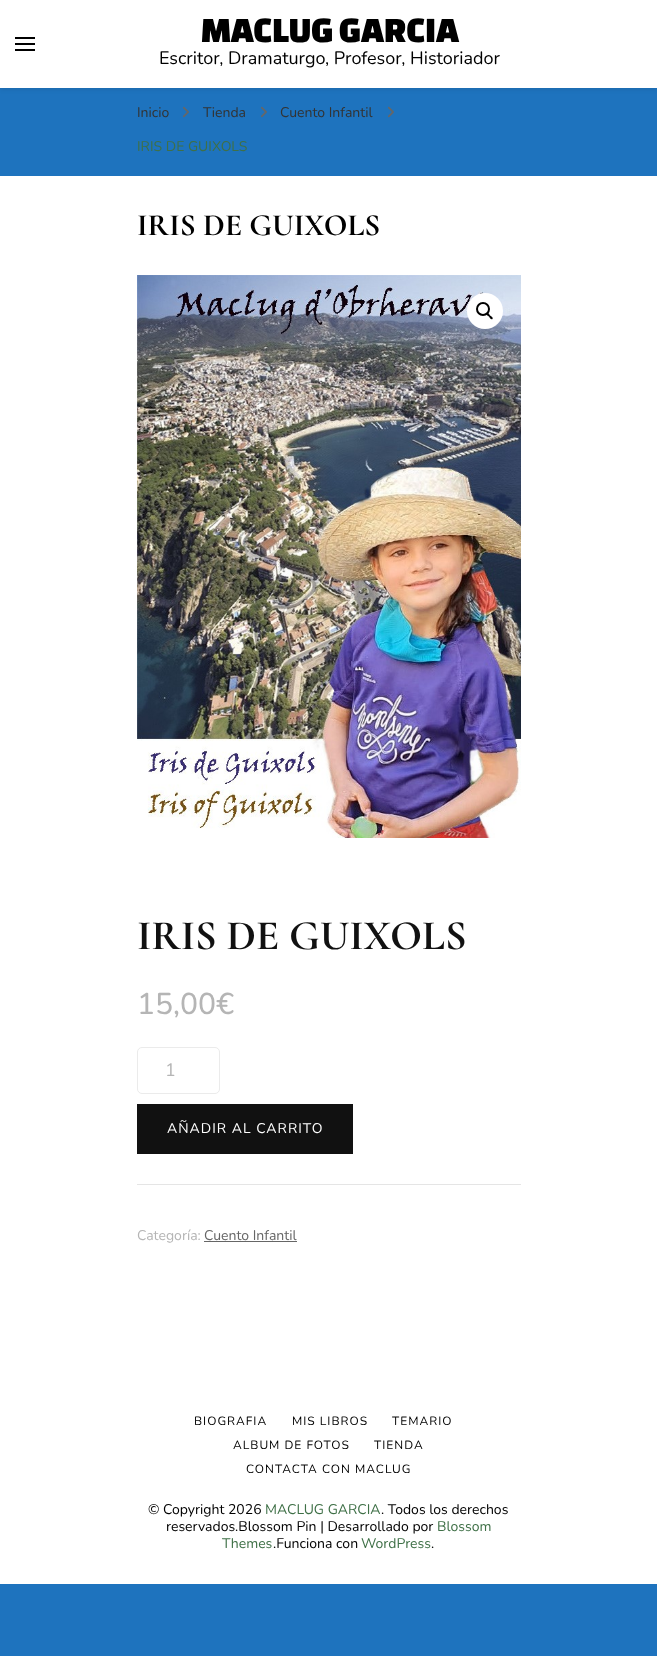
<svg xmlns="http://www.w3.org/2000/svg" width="657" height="1656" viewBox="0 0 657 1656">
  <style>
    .t1 { font: 37px Changa One; fill: #000; }
    .t2 { font: 18px Nunito; fill: #000; }
    .t3 { font: 14px Nunito; fill: #333; }
    .t4 { font: 14px Nunito; fill: #3f7047; }
    .t5 { font: bold 31px Cormorant Garamond; fill: #000; }
    .t6 { font: bold 42px Cormorant Garamond; fill: #111; }
    .t7 { font: 500 30px Nunito; fill: #b5b5b5; }
    .t8 { font: 18px Nunito; fill: #b5b5b5; }
    .t9 { font: 14px Nunito; letter-spacing: 1px; fill: #fff; }
    .t10 { font: 14px Nunito; fill: #b5b5b5; }
    .t11 { font: 14px Nunito; fill: #666; }
    .t12 { font: 12px Nunito; letter-spacing: 1px; fill: #000; }
    .t13 { font: 14px Nunito; fill: #000; }
  </style>
  <rect width="100%" height="100%" fill="#1e73be"/>
  <rect x="0" y="1" width="657" height="88" fill="#0000001a" filter="blur(2.5px)"/>
  <rect x="0" y="0" width="657" height="88" fill="#fff"/>
  <rect x="15" y="37" width="20" height="2" fill="#000"/>
  <rect x="15" y="43" width="20" height="2" fill="#000"/>
  <rect x="15" y="49" width="20" height="2" fill="#000"/>
  <text x="201" y="42" class="t1">MACLUG GARCIA</text>
  <text x="159" y="64" class="t2">Escritor, Dramaturgo, Profesor, Historiador</text>
  <text x="137" y="117" class="t3">Inicio</text>
  <image x="183" y="106" width="6" height="12" href="images/1.png"/>
  <text x="203" y="117" class="t3">Tienda</text>
  <image x="261" y="106" width="6" height="12" href="images/1.png"/>
  <text x="280" y="117" class="t3">Cuento Infantil</text>
  <image x="388" y="106" width="6" height="12" href="images/1.png"/>
  <text x="137" y="151" class="t4">IRIS DE GUIXOLS</text>
  <rect x="0" y="176" width="657" height="1408" fill="#fff"/>
  <text x="137" y="235" class="t5">IRIS DE GUIXOLS</text>
  <image x="137" y="275" width="384" height="563" href="images/2.png"/>
  <circle cx="485" cy="311" r="18" fill="#fff"/>
  <circle cx="483" cy="309" r="6" fill="none" stroke="#000" stroke-width="2"/>
  <path d="M486.5 313C488 312 489.5 314.5 490 315.5C491 316 493.5 317.5 492.5 319C491 320 489.5 317.5 489 316.5C488 316 485.5 314.5 486.5 313Z" fill="#000"/>
  <text x="137" y="949" class="t6">IRIS DE GUIXOLS</text>
  <text x="137" y="1014" class="t7">15,00€</text>
  <rect x="137" y="1184" width="384" height="1" fill="#e5e5e5"/>
  <rect x="137.5" y="1047.5" width="82" height="46" rx="4.5" fill="none" stroke="#ebebeb"/>
  <text x="165" y="1076" class="t8">1</text>
  <rect x="137" y="1104" width="216" height="50" fill="#111"/>
  <text x="167" y="1133" class="t9">AÑADIR AL CARRITO</text>
  <text x="137" y="1240" class="t10">Categoría:</text>
  <text x="204" y="1240" class="t11">Cuento Infantil</text>
  <rect x="204" y="1241" width="93" height="1" fill="#666"/>
  <text x="194" y="1425" class="t12">BIOGRAFIA</text>
  <text x="292" y="1425" class="t12">MIS LIBROS</text>
  <text x="392" y="1425" class="t12">TEMARIO</text>
  <text x="233" y="1449" class="t12">ALBUM DE FOTOS</text>
  <text x="374" y="1449" class="t12">TIENDA</text>
  <text x="246" y="1473" class="t12">CONTACTA CON MACLUG</text>
  <text x="148" y="1514" class="t13">© Copyright 2026</text>
  <text x="265" y="1514" class="t4">MACLUG GARCIA</text>
  <text x="381" y="1514" class="t13">. Todos los derechos</text>
  <text x="166" y="1531" class="t13">reservados.Blossom Pin | Desarrollado por</text>
  <text x="437" y="1531" class="t4">Blossom</text>
  <text x="222" y="1548" class="t4">Themes</text>
  <text x="273" y="1548" class="t13">.Funciona con</text>
  <text x="361" y="1548" class="t4">WordPress</text>
  <text x="431" y="1548" class="t13">.</text>
</svg>
